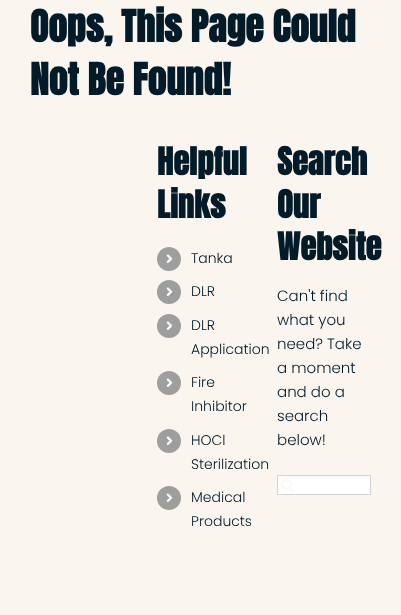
<svg xmlns="http://www.w3.org/2000/svg" width="401" height="615" viewBox="0 0 401 615">
  <style>
    .t1 { font: bold 37.5px Anton; fill: #031a29; }
    .t2 { font: bold 32.5px Anton; fill: #031a29; }
    .t3 { font: 300 14px Poppins; fill: #031a29; }
    .t4 { font: 300 15px Poppins; fill: #031a29; }
  </style>
  <rect width="100%" height="100%" fill="#faf5ef"/>
  <text x="30" y="42" class="t1">Oops, This Page Could</text>
  <text x="30" y="95" class="t1">Not Be Found!</text>
  <text x="157" y="175" class="t2">Helpful</text>
  <text x="157" y="218" class="t2">Links</text>
  <circle cx="169" cy="259" r="12" fill="#9e9e9e"/>
  <image x="166" y="254" width="7" height="9" href="images/1.png"/>
  <text x="191" y="263" class="t3">Tanka</text>
  <circle cx="169" cy="292" r="12" fill="#9e9e9e"/>
  <image x="166" y="287" width="7" height="9" href="images/1.png"/>
  <text x="191" y="296" class="t3">DLR</text>
  <circle cx="169" cy="326" r="12" fill="#9e9e9e"/>
  <image x="166" y="321" width="7" height="9" href="images/1.png"/>
  <text x="191" y="330" class="t3">DLR</text>
  <text x="191" y="354" class="t3">Application</text>
  <circle cx="169" cy="383" r="12" fill="#9e9e9e"/>
  <image x="166" y="378" width="7" height="9" href="images/1.png"/>
  <text x="191" y="387" class="t3">Fire</text>
  <text x="191" y="411" class="t3">Inhibitor</text>
  <circle cx="169" cy="441" r="12" fill="#9e9e9e"/>
  <image x="166" y="436" width="7" height="9" href="images/1.png"/>
  <text x="191" y="445" class="t3">HOCl</text>
  <text x="191" y="469" class="t3">Sterilization</text>
  <circle cx="169" cy="498" r="12" fill="#9e9e9e"/>
  <image x="166" y="493" width="7" height="9" href="images/1.png"/>
  <text x="191" y="502" class="t3">Medical</text>
  <text x="191" y="526" class="t3">Products</text>
  <text x="277" y="175" class="t2">Search</text>
  <text x="277" y="218" class="t2">Our</text>
  <text x="277" y="260" class="t2">Website</text>
  <text x="277" y="301" class="t4">Can't find</text>
  <text x="277" y="325" class="t4">what you</text>
  <text x="277" y="349" class="t4">need? Take</text>
  <text x="277" y="373" class="t4">a moment</text>
  <text x="277" y="397" class="t4">and do a</text>
  <text x="277" y="421" class="t4">search</text>
  <text x="277" y="445" class="t4">below!</text>
  <rect x="277.5" y="475.5" width="93" height="19" fill="#fff" stroke="#d2d2d2"/>
  <image x="281" y="479" width="13" height="12" href="images/2.png"/>
</svg>
